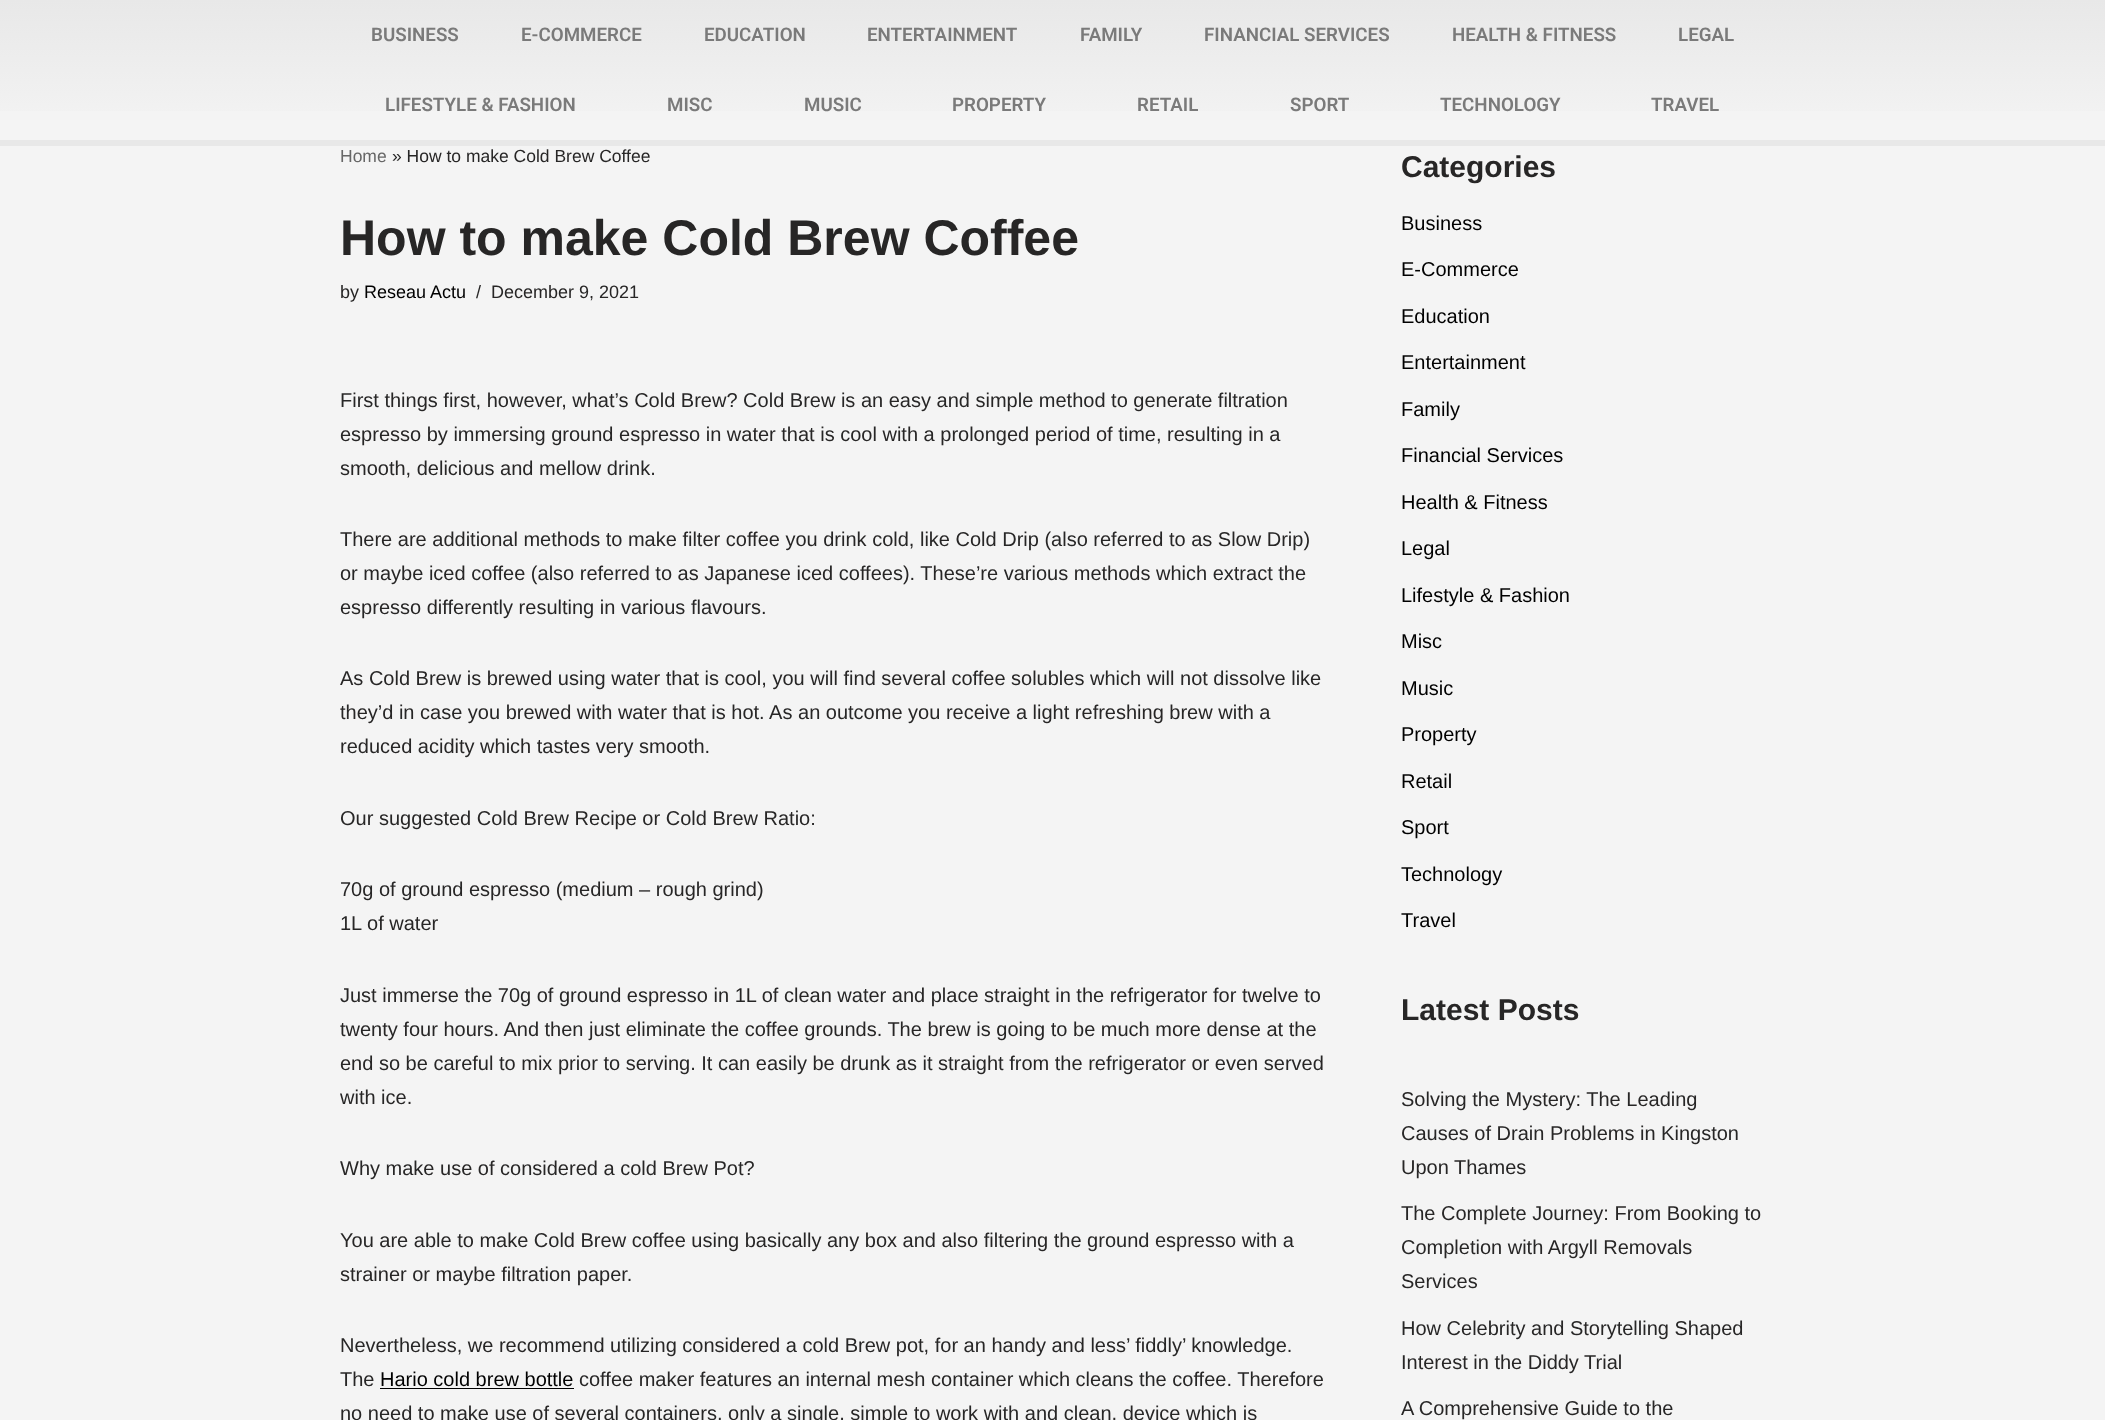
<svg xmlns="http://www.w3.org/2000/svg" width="2105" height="1420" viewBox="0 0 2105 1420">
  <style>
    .t1 { font: 600 18.75px Roboto; fill: #7a7a7a; }
    .t2 { font: 17.5px Liberation Sans; fill: #676767; }
    .t3 { font: 17.5px Liberation Sans; fill: #272626; }
    .t4 { font: bold 50px Liberation Sans; fill: #272626; }
    .t5 { font: 18px Liberation Sans; fill: #272626; }
    .t6 { font: 18px Liberation Sans; fill: #000; }
    .t7 { font: 20px Liberation Sans; fill: #272626; }
    .t8 { font: 20px Liberation Sans; fill: #000; }
    .t9 { font: bold 30px Liberation Sans; fill: #272626; }
  </style>
  <defs>
    <linearGradient id="g1" gradientUnits="userSpaceOnUse" x1="1053" y1="0" x2="1053" y2="140"><stop offset="0" stop-color="#e8e8e8"/><stop offset="1" stop-color="#f4f4f4"/></linearGradient>
  </defs>
  <rect width="100%" height="100%" fill="#f4f4f4"/>
  <rect x="0" y="0" width="2105" height="111" fill="url(#g1)"/>
  <rect x="0" y="140" width="2105" height="6" fill="#e8e8e8"/>
  <text x="371" y="41" class="t1">BUSINESS</text>
  <text x="521" y="41" class="t1">E-COMMERCE</text>
  <text x="704" y="41" class="t1">EDUCATION</text>
  <text x="867" y="41" class="t1">ENTERTAINMENT</text>
  <text x="1080" y="41" class="t1">FAMILY</text>
  <text x="1204" y="41" class="t1">FINANCIAL SERVICES</text>
  <text x="1452" y="41" class="t1">HEALTH &amp; FITNESS</text>
  <text x="1678" y="41" class="t1">LEGAL</text>
  <text x="385" y="111" class="t1">LIFESTYLE &amp; FASHION</text>
  <text x="667" y="111" class="t1">MISC</text>
  <text x="804" y="111" class="t1">MUSIC</text>
  <text x="952" y="111" class="t1">PROPERTY</text>
  <text x="1137" y="111" class="t1">RETAIL</text>
  <text x="1290" y="111" class="t1">SPORT</text>
  <text x="1440" y="111" class="t1">TECHNOLOGY</text>
  <text x="1651" y="111" class="t1">TRAVEL</text>
  <text x="340" y="162" class="t2">Home</text>
  <text x="392" y="162" class="t3">» How to make Cold Brew Coffee</text>
  <text x="340" y="255" class="t4">How to make Cold Brew Coffee</text>
  <text x="340" y="298" class="t5">by</text>
  <text x="364" y="298" class="t6">Reseau Actu</text>
  <text x="476" y="298" class="t5">/</text>
  <text x="491" y="298" class="t5">December 9, 2021</text>
  <text x="340" y="407" class="t7">First things first, however, what’s Cold Brew? Cold Brew is an easy and simple method to generate filtration</text>
  <text x="340" y="441" class="t7">espresso by immersing ground espresso in water that is cool with a prolonged period of time, resulting in a</text>
  <text x="340" y="475" class="t7">smooth, delicious and mellow drink.</text>
  <text x="340" y="546" class="t7">There are additional methods to make filter coffee you drink cold, like Cold Drip (also referred to as Slow Drip)</text>
  <text x="340" y="580" class="t7">or maybe iced coffee (also referred to as Japanese iced coffees). These’re various methods which extract the</text>
  <text x="340" y="614" class="t7">espresso differently resulting in various flavours.</text>
  <text x="340" y="685" class="t7">As Cold Brew is brewed using water that is cool, you will find several coffee solubles which will not dissolve like</text>
  <text x="340" y="719" class="t7">they’d in case you brewed with water that is hot. As an outcome you receive a light refreshing brew with a</text>
  <text x="340" y="753" class="t7">reduced acidity which tastes very smooth.</text>
  <text x="340" y="825" class="t7">Our suggested Cold Brew Recipe or Cold Brew Ratio:</text>
  <text x="340" y="896" class="t7">70g of ground espresso (medium – rough grind)</text>
  <text x="340" y="930" class="t7">1L of water</text>
  <text x="340" y="1002" class="t7">Just immerse the 70g of ground espresso in 1L of clean water and place straight in the refrigerator for twelve to</text>
  <text x="340" y="1036" class="t7">twenty four hours. And then just eliminate the coffee grounds. The brew is going to be much more dense at the</text>
  <text x="340" y="1070" class="t7">end so be careful to mix prior to serving. It can easily be drunk as it straight from the refrigerator or even served</text>
  <text x="340" y="1104" class="t7">with ice.</text>
  <text x="340" y="1175" class="t7">Why make use of considered a cold Brew Pot?</text>
  <text x="340" y="1247" class="t7">You are able to make Cold Brew coffee using basically any box and also filtering the ground espresso with a</text>
  <text x="340" y="1281" class="t7">strainer or maybe filtration paper.</text>
  <text x="340" y="1352" class="t7">Nevertheless, we recommend utilizing considered a cold Brew pot, for an handy and less’ fiddly’ knowledge.</text>
  <text x="340" y="1386" class="t7">The</text>
  <text x="380" y="1386" class="t8">Hario cold brew bottle</text>
  <rect x="380" y="1388" width="194" height="1" fill="#000"/>
  <text x="579" y="1386" class="t7">coffee maker features an internal mesh container which cleans the coffee. Therefore</text>
  <text x="340" y="1420" class="t7">no need to make use of several containers, only a single, simple to work with and clean, device which is</text>
  <text x="1401" y="177" class="t9">Categories</text>
  <text x="1401" y="230" class="t8">Business</text>
  <text x="1401" y="276" class="t8">E-Commerce</text>
  <text x="1401" y="323" class="t8">Education</text>
  <text x="1401" y="369" class="t8">Entertainment</text>
  <text x="1401" y="416" class="t8">Family</text>
  <text x="1401" y="462" class="t8">Financial Services</text>
  <text x="1401" y="509" class="t8">Health &amp; Fitness</text>
  <text x="1401" y="555" class="t8">Legal</text>
  <text x="1401" y="602" class="t8">Lifestyle &amp; Fashion</text>
  <text x="1401" y="648" class="t8">Misc</text>
  <text x="1401" y="695" class="t8">Music</text>
  <text x="1401" y="741" class="t8">Property</text>
  <text x="1401" y="788" class="t8">Retail</text>
  <text x="1401" y="834" class="t8">Sport</text>
  <text x="1401" y="881" class="t8">Technology</text>
  <text x="1401" y="927" class="t8">Travel</text>
  <text x="1401" y="1020" class="t9">Latest Posts</text>
  <text x="1401" y="1106" class="t7">Solving the Mystery: The Leading</text>
  <text x="1401" y="1140" class="t7">Causes of Drain Problems in Kingston</text>
  <text x="1401" y="1174" class="t7">Upon Thames</text>
  <text x="1401" y="1220" class="t7">The Complete Journey: From Booking to</text>
  <text x="1401" y="1254" class="t7">Completion with Argyll Removals</text>
  <text x="1401" y="1288" class="t7">Services</text>
  <text x="1401" y="1335" class="t7">How Celebrity and Storytelling Shaped</text>
  <text x="1401" y="1369" class="t7">Interest in the Diddy Trial</text>
  <text x="1401" y="1415" class="t7">A Comprehensive Guide to the</text>
</svg>
